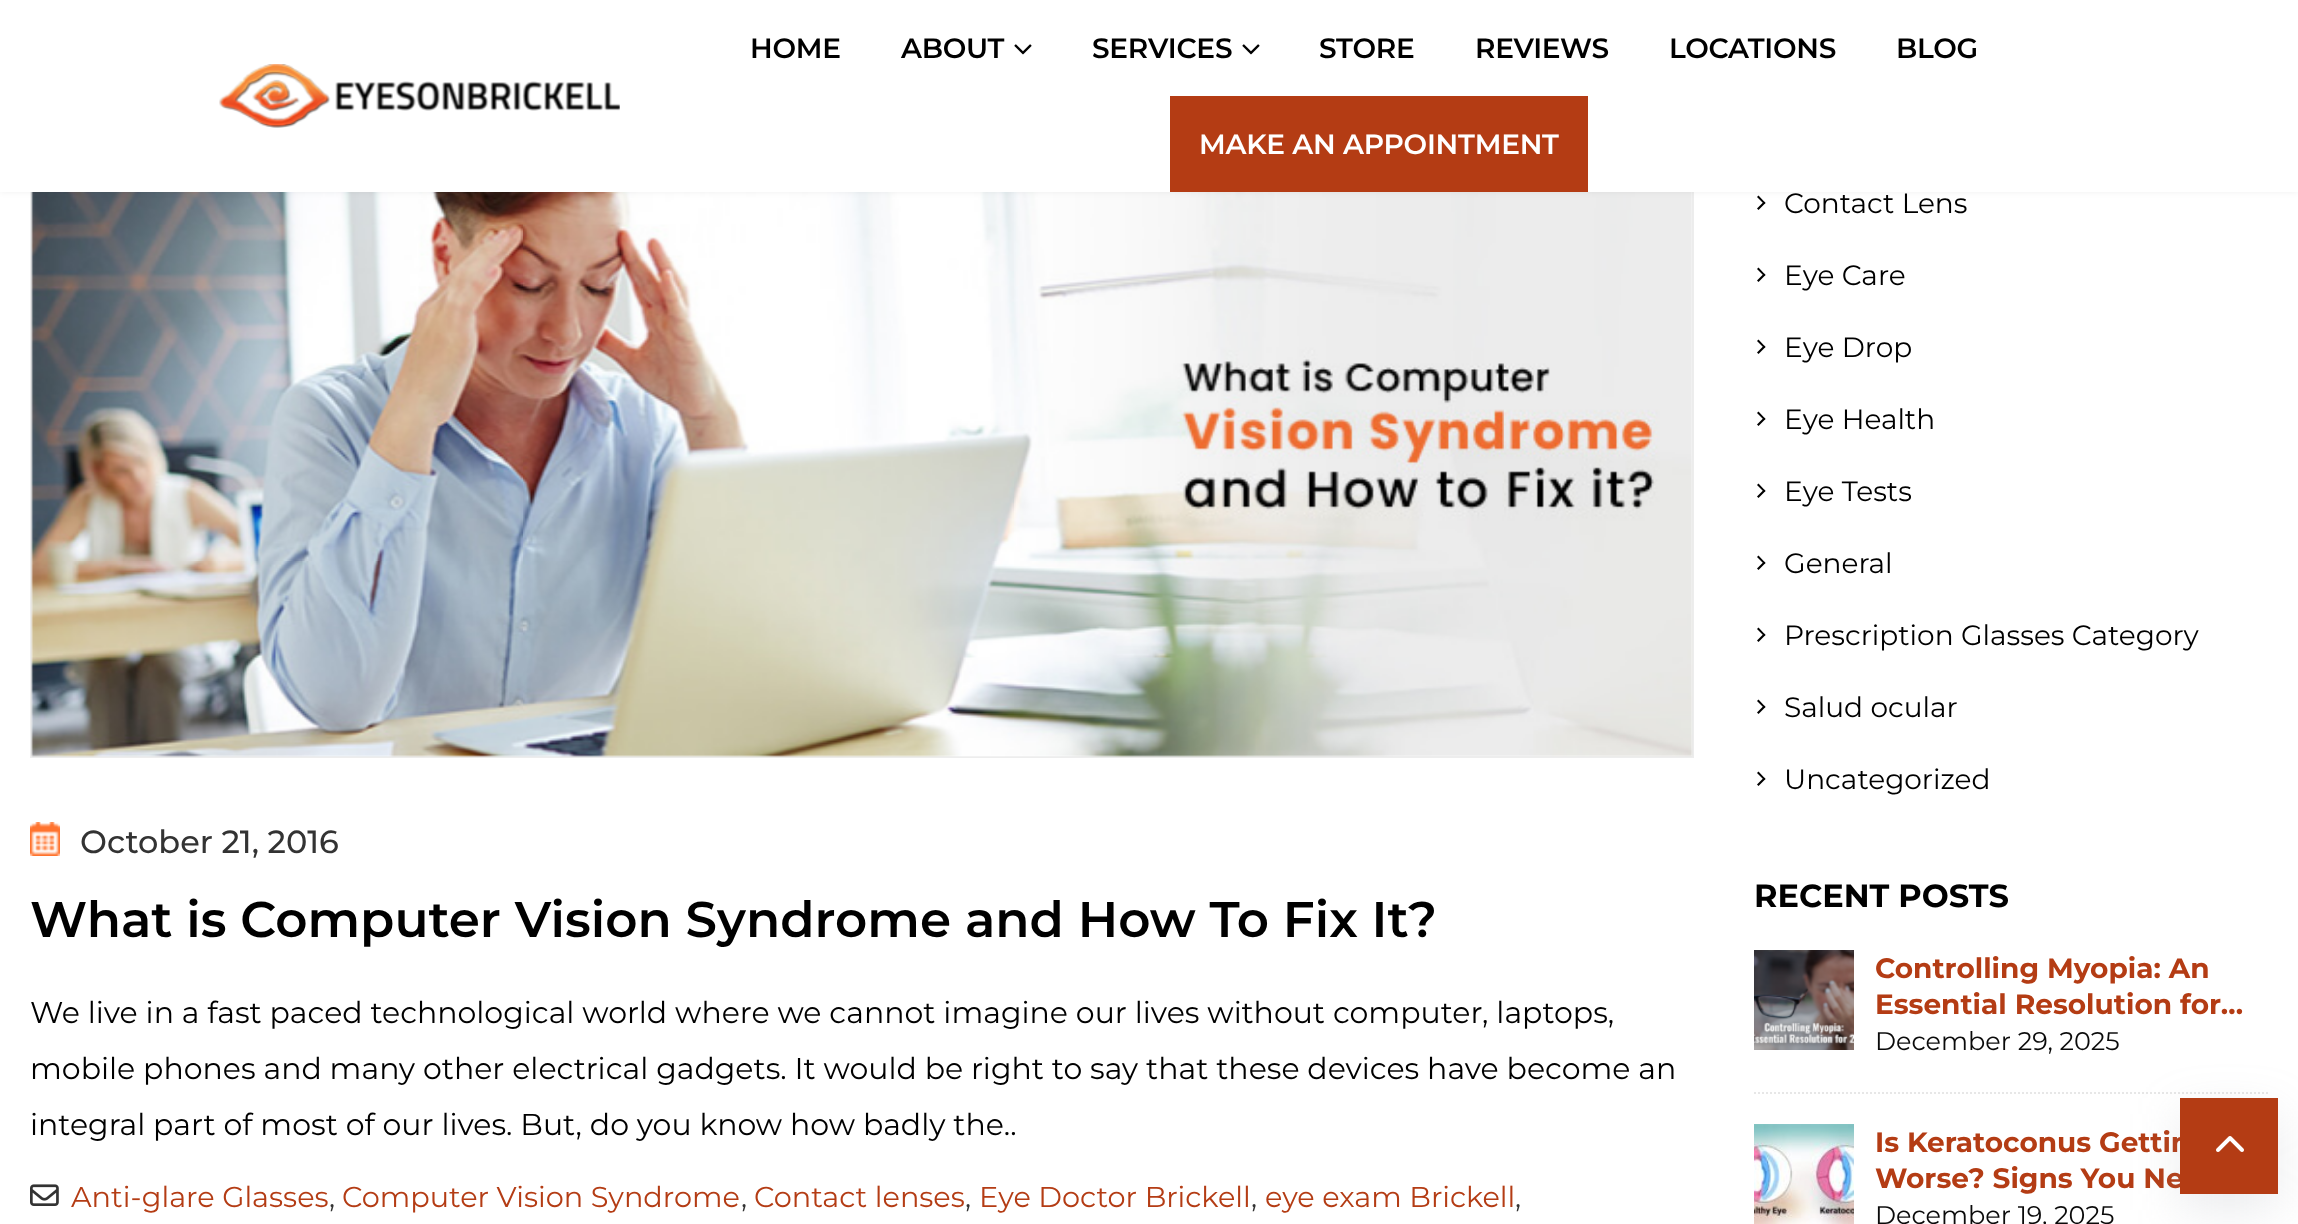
<svg xmlns="http://www.w3.org/2000/svg" width="2298" height="1224" viewBox="0 0 2298 1224">
  <style>
    .t1 { font: 600 28px Montserrat; letter-spacing: -0.25px; fill: #000; }
    .t2 { font: 600 28px Montserrat; letter-spacing: -0.25px; fill: #fff; }
    .t3 { font: 500 32px Montserrat; fill: #333; }
    .t4 { font: 600 50px Montserrat; fill: #000; }
    .t5 { font: 30px Montserrat; fill: #000; }
    .t6 { font: 28.75px Montserrat; fill: #b43c14; }
    .t7 { font: 28.75px Montserrat; fill: #333; }
    .t8 { font: 28px Montserrat; fill: #000; }
    .t9 { font: bold 32px Montserrat; fill: #000; }
    .t10 { font: bold 28px Montserrat; fill: #b43c14; }
    .t11 { font: 25.5px Montserrat; fill: #0a0a0a; }
  </style>
  <rect width="100%" height="100%" fill="#fff"/>
  <rect x="31" y="69" width="1662" height="688" fill="none" stroke="#ededed" stroke-width="2"/>
  <image x="31" y="192" width="1662" height="566" href="images/3.png"/>
  <path d="M1757 197L1758.5 195.5L1765.5 203L1764 204Z" fill="#000"/>
  <path d="M1757 208.5L1764 201.5L1765.5 203L1758.5 210Z" fill="#000"/>
  <rect x="0" y="0" width="2298" height="192" fill="#0000000f" filter="blur(3px)"/>
  <rect x="0" y="0" width="2298" height="192" fill="#fff"/>
  <image x="219" y="64" width="401" height="64" href="images/1.png"/>
  <text x="750" y="58" class="t1">HOME</text>
  <text x="901" y="58" class="t1">ABOUT</text>
  <image x="1014" y="44" width="18" height="11" href="images/2.png"/>
  <text x="1092" y="58" class="t1">SERVICES</text>
  <image x="1242" y="44" width="18" height="11" href="images/2.png"/>
  <text x="1319" y="58" class="t1">STORE</text>
  <text x="1475" y="58" class="t1">REVIEWS</text>
  <text x="1669" y="58" class="t1">LOCATIONS</text>
  <text x="1896" y="58" class="t1">BLOG</text>
  <rect x="1170" y="96" width="418" height="96" fill="#b43c14"/>
  <text x="1199" y="154" class="t2">MAKE AN APPOINTMENT</text>
  <image x="30" y="822" width="30" height="34" href="images/4.png"/>
  <text x="80" y="853" class="t3">October 21, 2016</text>
  <text x="30" y="937" class="t4">What is Computer Vision Syndrome and How To Fix It?</text>
  <text x="30" y="1023" class="t5">We live in a fast paced technological world where we cannot imagine our lives without computer, laptops,</text>
  <text x="30" y="1079" class="t5">mobile phones and many other electrical gadgets. It would be right to say that these devices have become an</text>
  <text x="30" y="1135" class="t5">integral part of most of our lives. But, do you know how badly the..</text>
  <image x="30" y="1184" width="29" height="22" href="images/5.png"/>
  <text x="71" y="1207" class="t6">Anti-glare Glasses</text>
  <text x="329" y="1207" class="t7">,</text>
  <text x="342" y="1207" class="t6">Computer Vision Syndrome</text>
  <text x="741" y="1207" class="t7">,</text>
  <text x="754" y="1207" class="t6">Contact lenses</text>
  <text x="965" y="1207" class="t7">,</text>
  <text x="979" y="1207" class="t6">Eye Doctor Brickell</text>
  <text x="1251" y="1207" class="t7">,</text>
  <text x="1265" y="1207" class="t6">eye exam Brickell</text>
  <text x="1515" y="1207" class="t7">,</text>
  <text x="1784" y="213" class="t8">Contact Lens</text>
  <path d="M1757 269L1758.5 267.5L1765.5 275L1764 276Z" fill="#000"/>
  <path d="M1757 280.5L1764 273.5L1765.5 275L1758.5 282Z" fill="#000"/>
  <text x="1784" y="285" class="t8">Eye Care</text>
  <path d="M1757 341L1758.5 339.5L1765.5 347L1764 348Z" fill="#000"/>
  <path d="M1757 352.5L1764 345.5L1765.5 347L1758.5 354Z" fill="#000"/>
  <text x="1784" y="357" class="t8">Eye Drop</text>
  <path d="M1757 413L1758.5 411.5L1765.5 419L1764 420Z" fill="#000"/>
  <path d="M1757 424.5L1764 417.5L1765.5 419L1758.5 426Z" fill="#000"/>
  <text x="1784" y="429" class="t8">Eye Health</text>
  <path d="M1757 485L1758.5 483.5L1765.5 491L1764 492Z" fill="#000"/>
  <path d="M1757 496.5L1764 489.5L1765.5 491L1758.5 498Z" fill="#000"/>
  <text x="1784" y="501" class="t8">Eye Tests</text>
  <path d="M1757 557L1758.5 555.5L1765.5 563L1764 564Z" fill="#000"/>
  <path d="M1757 568.5L1764 561.5L1765.5 563L1758.5 570Z" fill="#000"/>
  <text x="1784" y="573" class="t8">General</text>
  <path d="M1757 629L1758.5 627.5L1765.5 635L1764 636Z" fill="#000"/>
  <path d="M1757 640.5L1764 633.5L1765.5 635L1758.5 642Z" fill="#000"/>
  <text x="1784" y="645" class="t8">Prescription Glasses Category</text>
  <path d="M1757 701L1758.5 699.5L1765.5 707L1764 708Z" fill="#000"/>
  <path d="M1757 712.5L1764 705.5L1765.5 707L1758.5 714Z" fill="#000"/>
  <text x="1784" y="717" class="t8">Salud ocular</text>
  <path d="M1757 773L1758.5 771.5L1765.5 779L1764 780Z" fill="#000"/>
  <path d="M1757 784.5L1764 777.5L1765.5 779L1758.5 786Z" fill="#000"/>
  <text x="1784" y="789" class="t8">Uncategorized</text>
  <text x="1754" y="907" class="t9">RECENT POSTS</text>
  <image x="1754" y="950" width="100" height="100" href="images/6.png"/>
  <text x="1875" y="978" class="t10">Controlling Myopia: An</text>
  <text x="1875" y="1014" class="t10">Essential Resolution for…</text>
  <text x="1875" y="1050" class="t11">December 29, 2025</text>
  <path d="M1754 1093H2270" fill="none" stroke="#e7e7e7" stroke-width="2" stroke-dasharray="2 2"/>
  <image x="1754" y="1124" width="100" height="100" href="images/7.png"/>
  <text x="1875" y="1152" class="t10">Is Keratoconus Gettin</text>
  <text x="1875" y="1188" class="t10">Worse? Signs You Ne</text>
  <text x="1875" y="1224" class="t11">December 19, 2025</text>
  <rect x="2180" y="1114" width="98" height="96" fill="#959da533" filter="blur(24px)"/>
  <rect x="2180" y="1098" width="98" height="96" fill="#b43c14"/>
  <image x="2216" y="1136" width="28" height="16" href="images/8.png"/>
</svg>
